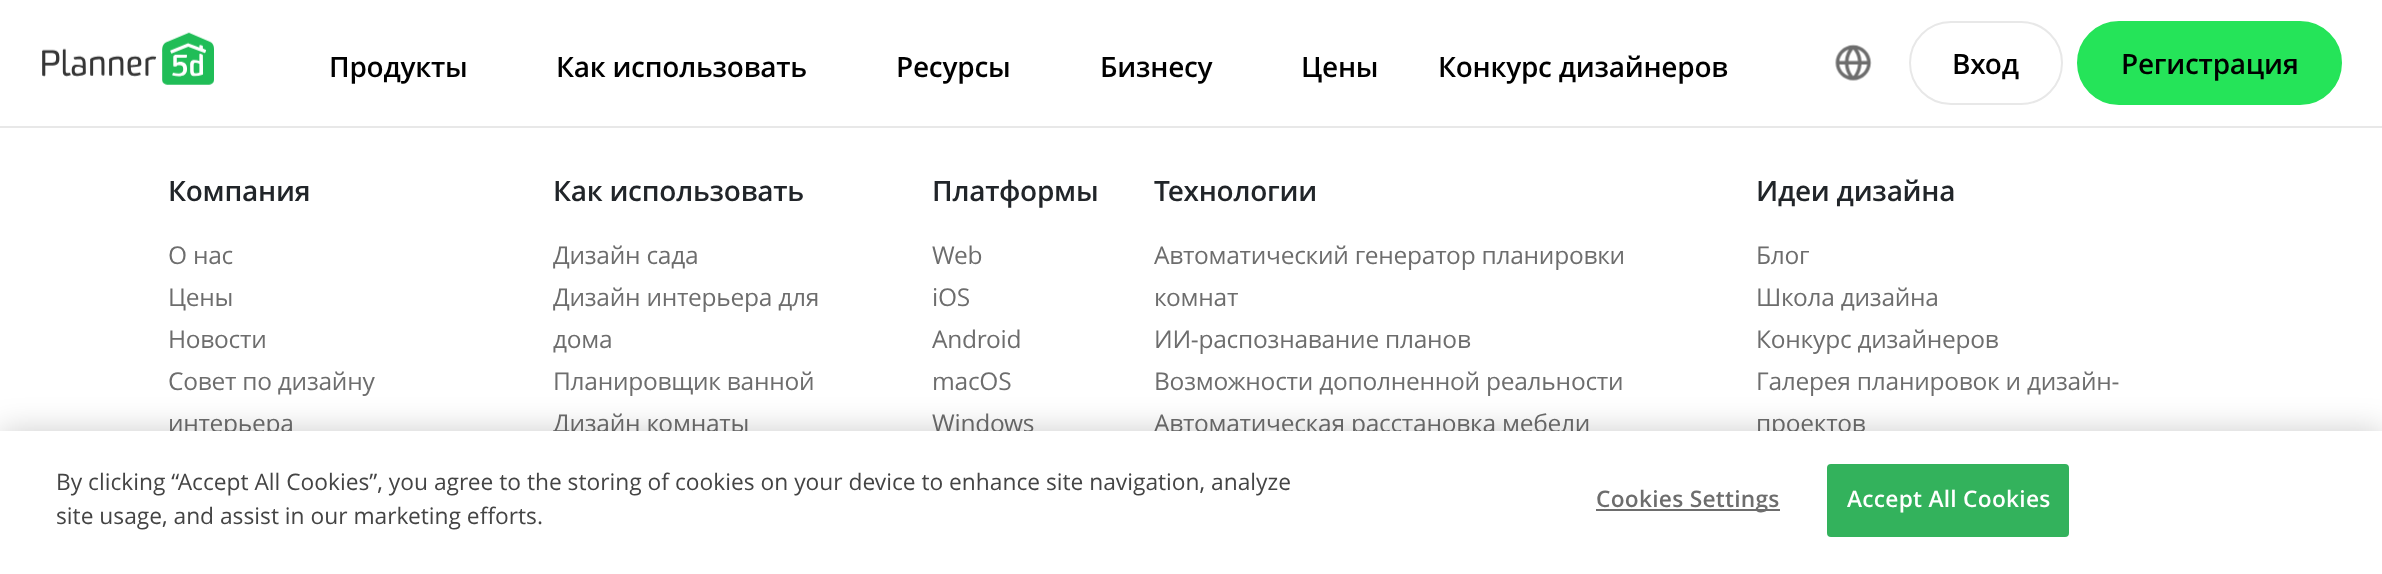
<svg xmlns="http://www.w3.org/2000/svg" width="2382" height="574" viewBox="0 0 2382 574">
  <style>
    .t1 { font: 600 28px Open Sans; letter-spacing: -0.25px; fill: #000; }
    .t2 { font: 600 28px Open Sans; letter-spacing: -0.25px; fill: #212529; }
    .t3 { font: 24.5px Open Sans; letter-spacing: -0.25px; fill: #6d6d6d; }
    .t4 { font: 22.75px Open Sans; fill: #444; }
    .t5 { font: 600 22.75px Open Sans; letter-spacing: 0.25px; fill: #6d6d6d; }
    .t6 { font: 600 22.75px Open Sans; letter-spacing: 0.25px; fill: #fff; }
  </style>
  <rect width="100%" height="100%" fill="#fff"/>
  <rect x="0" y="126" width="2382" height="2" fill="#e8e8e8"/>
  <image x="42" y="32" width="172" height="53" href="images/1.png"/>
  <text x="329" y="77" class="t1">Продукты</text>
  <text x="556" y="77" class="t1">Как использовать</text>
  <text x="896" y="77" class="t1">Ресурсы</text>
  <text x="1100" y="77" class="t1">Бизнесу</text>
  <text x="1301" y="77" class="t1">Цены</text>
  <text x="1438" y="77" class="t1">Конкурс дизайнеров</text>
  <image x="1835" y="44" width="37" height="37" href="images/2.png"/>
  <rect x="1910" y="22" width="152" height="82" rx="41" fill="none" stroke="#e8e8e8" stroke-width="2"/>
  <text x="1952" y="74" class="t1">Вход</text>
  <rect x="2078" y="22" width="263" height="82" rx="41" fill="#25e459" stroke="#25e459" stroke-width="2"/>
  <text x="2121" y="74" class="t1">Регистрация</text>
  <text x="168" y="201" class="t2">Компания</text>
  <text x="168" y="264" class="t3">О нас</text>
  <text x="168" y="306" class="t3">Цены</text>
  <text x="168" y="348" class="t3">Новости</text>
  <text x="168" y="390" class="t3">Совет по дизайну</text>
  <text x="168" y="432" class="t3">интерьера</text>
  <text x="553" y="201" class="t2">Как использовать</text>
  <text x="553" y="264" class="t3">Дизайн сада</text>
  <text x="553" y="306" class="t3">Дизайн интерьера для</text>
  <text x="553" y="348" class="t3">дома</text>
  <text x="553" y="390" class="t3">Планировщик ванной</text>
  <text x="553" y="432" class="t3">Дизайн комнаты</text>
  <text x="932" y="201" class="t2">Платформы</text>
  <text x="932" y="264" class="t3">Web</text>
  <text x="932" y="306" class="t3">iOS</text>
  <text x="932" y="348" class="t3">Android</text>
  <text x="932" y="390" class="t3">macOS</text>
  <text x="932" y="432" class="t3">Windows</text>
  <text x="1154" y="201" class="t2">Технологии</text>
  <text x="1154" y="264" class="t3">Автоматический генератор планировки</text>
  <text x="1154" y="306" class="t3">комнат</text>
  <text x="1154" y="348" class="t3">ИИ-распознавание планов</text>
  <text x="1154" y="390" class="t3">Возможности дополненной реальности</text>
  <text x="1154" y="432" class="t3">Автоматическая расстановка мебели</text>
  <text x="1756" y="201" class="t2">Идеи дизайна</text>
  <text x="1756" y="264" class="t3">Блог</text>
  <text x="1756" y="306" class="t3">Школа дизайна</text>
  <text x="1756" y="348" class="t3">Конкурс дизайнеров</text>
  <text x="1756" y="390" class="t3">Галерея планировок и дизайн-</text>
  <text x="1756" y="432" class="t3">проектов</text>
  <rect x="0" y="431" width="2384" height="143" fill="#00000033" filter="blur(16px)"/>
  <rect x="0" y="431" width="2382" height="143" fill="#fff"/>
  <text x="56" y="490" class="t4">By clicking “Accept All Cookies”, you agree to the storing of cookies on your device to enhance site navigation, analyze</text>
  <text x="56" y="524" class="t4">site usage, and assist in our marketing efforts.</text>
  <rect x="1596" y="509" width="184" height="2" fill="#6d6d6d"/>
  <text x="1596" y="507" class="t5">Cookies Settings</text>
  <rect x="1828" y="465" width="240" height="71" rx="3" fill="#33b25c" stroke="#33b25c" stroke-width="2"/>
  <text x="1847" y="507" class="t6">Accept All Cookies</text>
</svg>
